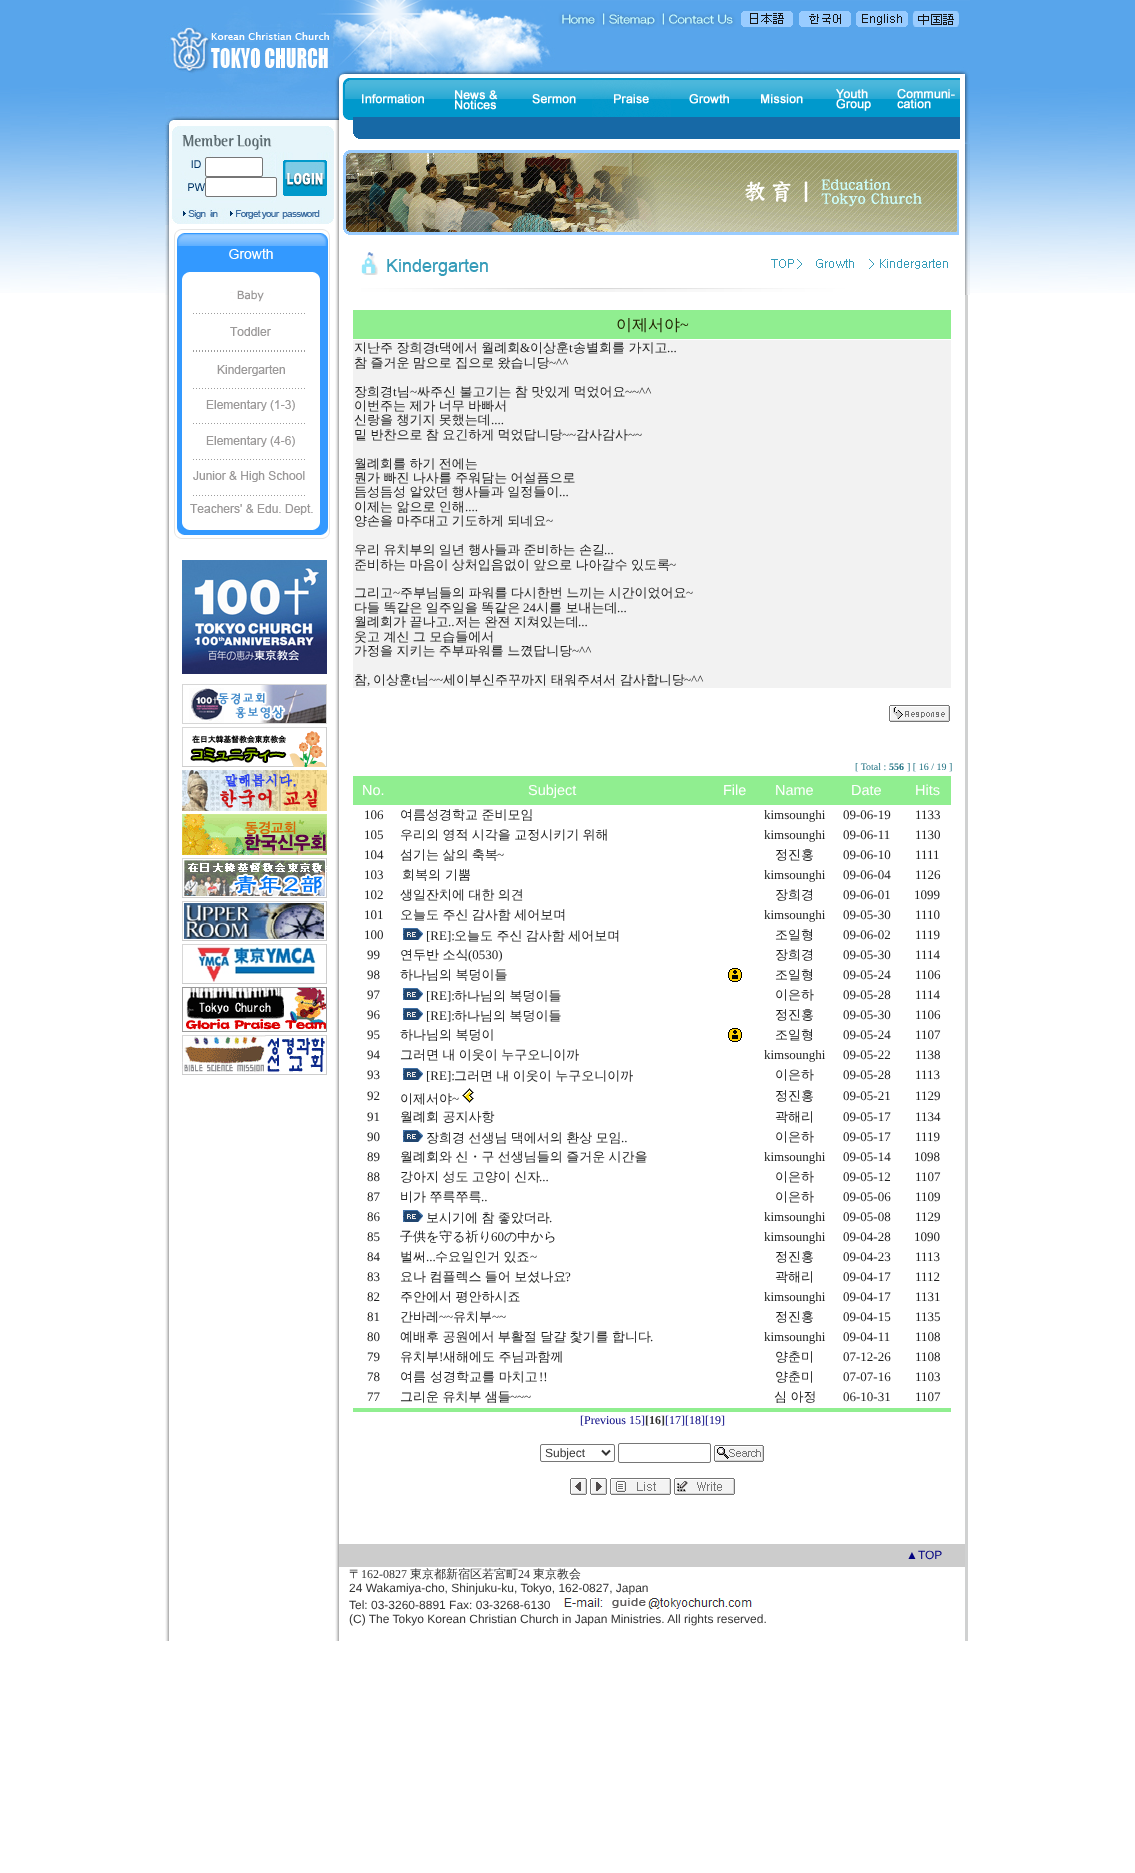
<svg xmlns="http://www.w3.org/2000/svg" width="1135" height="1873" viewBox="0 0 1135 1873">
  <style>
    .t1 { font: 500 16px WenQuanYi Zen Hei; fill: #220; }
    .t2 { font: 16px Liberation Serif; fill: #220; }
    .t3 { font: 500 13px WenQuanYi Zen Hei; fill: #222; }
    .t4 { font: 13px Liberation Serif; fill: #222; }
    .t5 { font: 10px Liberation Serif; fill: #1f7182; }
    .t6 { font: bold 10px Liberation Serif; fill: #1f7182; }
    .t7 { font: 14.5px Liberation Sans; fill: #fff; }
    .t8 { font: 12px Liberation Serif; fill: #000080; }
    .t9 { font: bold 12px Liberation Serif; fill: #333; }
    .t10 { font: 12px Liberation Sans; fill: #333; }
    .t11 { font: 12px Liberation Sans; fill: #000080; }
    .t12 { font: 500 12px WenQuanYi Zen Hei; fill: #333; }
    .t13 { font: 12px Liberation Serif; fill: #333; }
  </style>
  <rect width="100%" height="100%" fill="#fff"/>
  <image x="0" y="0" width="165" height="293" href="images/1.png"/>
  <image x="970" y="0" width="165" height="293" href="images/1.png"/>
  <image x="165" y="120" width="174" height="1521" href="images/2.png"/>
  <image x="165" y="0" width="174" height="120" href="images/3.png"/>
  <image x="165" y="120" width="112" height="85" href="images/4.png"/>
  <rect x="205.5" y="157.5" width="57" height="19" rx="1.5" fill="#fff" stroke="#767676"/>
  <rect x="205.5" y="177.5" width="71" height="19" rx="1.5" fill="#fff" stroke="#767676"/>
  <image x="277" y="126" width="57" height="79" href="images/5.png"/>
  <image x="165" y="205" width="61" height="20" href="images/6.png"/>
  <image x="226" y="205" width="108" height="19" href="images/7.png"/>
  <image x="165" y="225" width="4" height="70" href="images/8.png"/>
  <image x="174" y="229" width="156" height="50" href="images/9.png"/>
  <image x="174" y="279" width="156" height="34" href="images/10.png"/>
  <image x="174" y="313" width="156" height="38" href="images/11.png"/>
  <image x="174" y="351" width="156" height="38" href="images/12.png"/>
  <image x="174" y="389" width="156" height="35" href="images/13.png"/>
  <image x="174" y="424" width="156" height="36" href="images/14.png"/>
  <image x="174" y="460" width="156" height="36" href="images/15.png"/>
  <image x="174" y="496" width="156" height="43" href="images/16.png"/>
  <image x="182" y="560" width="145" height="114" href="images/17.png"/>
  <image x="182" y="684" width="145" height="40" href="images/18.png"/>
  <image x="182" y="727" width="145" height="40" href="images/19.png"/>
  <image x="182" y="770" width="145" height="41" href="images/20.png"/>
  <image x="182" y="814" width="145" height="41" href="images/21.png"/>
  <image x="182" y="858" width="145" height="40" href="images/22.png"/>
  <image x="182" y="901" width="145" height="40" href="images/23.png"/>
  <image x="182" y="944" width="145" height="40" href="images/24.png"/>
  <image x="182" y="987" width="145" height="45" href="images/25.png"/>
  <image x="182" y="1035" width="145" height="40" href="images/26.png"/>
  <image x="339" y="0" width="205" height="31" href="images/27.png"/>
  <image x="544" y="0" width="61" height="31" href="images/28.png"/>
  <image x="605" y="0" width="55" height="31" href="images/29.png"/>
  <image x="660" y="0" width="76" height="31" href="images/30.png"/>
  <image x="736" y="0" width="57" height="31" href="images/31.png"/>
  <image x="793" y="0" width="58" height="31" href="images/32.png"/>
  <image x="851" y="0" width="57" height="31" href="images/33.png"/>
  <image x="908" y="0" width="62" height="31" href="images/34.png"/>
  <image x="339" y="31" width="631" height="43" href="images/35.png"/>
  <image x="339" y="74" width="14" height="46" href="images/36.png"/>
  <image x="965" y="74" width="5" height="70" href="images/37.png"/>
  <image x="353" y="78" width="79" height="39" href="images/38.png"/>
  <image x="432" y="78" width="84" height="39" href="images/39.png"/>
  <image x="516" y="78" width="76" height="39" href="images/40.png"/>
  <image x="592" y="78" width="79" height="39" href="images/41.png"/>
  <image x="671" y="78" width="75" height="39" href="images/42.png"/>
  <image x="746" y="78" width="70" height="39" href="images/43.png"/>
  <image x="816" y="78" width="73" height="39" href="images/44.png"/>
  <image x="889" y="78" width="71" height="39" href="images/45.png"/>
  <rect x="353" y="117" width="607" height="22" fill="#1769a6"/>
  <image x="353" y="134" width="5" height="5" href="images/46.png"/>
  <image x="343" y="150" width="616" height="85" href="images/47.png"/>
  <image x="361" y="252" width="587" height="40" href="images/48.png"/>
  <image x="965" y="144" width="5" height="151" href="images/49.png"/>
  <rect x="353" y="310" width="598" height="29" fill="#90ee90"/>
  <text x="616" y="330" class="t1">이제서야</text>
  <text x="680" y="330" class="t2">~</text>
  <rect x="353" y="340" width="598" height="348" fill="#f2f2f2"/>
  <text x="354" y="352" word-spacing="-0.5" class="t3">지난주 장희경 댁에서 월례회</text>
  <text x="520" y="352" class="t4">&amp;</text>
  <text x="530" y="352" class="t3">이상훈</text>
  <text x="573" y="352" word-spacing="-0.5" class="t3">송별회를 가지고</text>
  <text x="435" y="352" class="t4">t</text>
  <text x="569" y="352" class="t4">t</text>
  <text x="667" y="352" class="t4">...</text>
  <text x="354" y="367" word-spacing="-0.5" class="t3">참 즐거운 맘으로 집으로 왔습니당</text>
  <text x="549" y="367" class="t4">~^^</text>
  <text x="354" y="396" class="t3">장희경 님</text>
  <text x="417" y="396" word-spacing="-0.5" class="t3">싸주신 불고기는 참 맛있게 먹었어요</text>
  <text x="625" y="396" class="t4">~~^^</text>
  <text x="393" y="396" class="t4">t</text>
  <text x="410" y="396" class="t4">~</text>
  <text x="354" y="410" word-spacing="-0.5" class="t3">이번주는 제가 너무 바빠서</text>
  <text x="354" y="424" word-spacing="-0.5" class="t3">신랑을 챙기지 못했는데</text>
  <text x="491" y="424" class="t4">....</text>
  <text x="354" y="439" word-spacing="-0.5" class="t3">밑 반찬으로 참 요긴하게 먹었답니당</text>
  <text x="562" y="439" class="t4">~~</text>
  <text x="576" y="439" class="t3">감사감사</text>
  <text x="628" y="439" class="t4">~~</text>
  <text x="354" y="468" word-spacing="-0.5" class="t3">월례회를 하기 전에는</text>
  <text x="354" y="482" word-spacing="-0.5" class="t3">뭔가 빠진 나사를 주워담는 어설픔으로</text>
  <text x="354" y="496" word-spacing="-0.5" class="t3">듬성듬성 알았던 행사들과 일정들이</text>
  <text x="559" y="496" class="t4">...</text>
  <text x="354" y="511" word-spacing="-0.5" class="t3">이제는 앎으로 인해</text>
  <text x="465" y="511" class="t4">....</text>
  <text x="354" y="525" word-spacing="-0.5" class="t3">양손을 마주대고 기도하게 되네요</text>
  <text x="546" y="525" class="t4">~</text>
  <text x="354" y="554" word-spacing="-0.5" class="t3">우리 유치부의 일년 행사들과 준비하는 손길</text>
  <text x="604" y="554" class="t4">...</text>
  <text x="354" y="569" word-spacing="-0.5" class="t3">준비하는 마음이 상처입음없이 앞으로 나아갈수 있도록</text>
  <text x="669" y="569" class="t4">~</text>
  <text x="354" y="597" class="t3">그리고</text>
  <text x="393" y="597" class="t4">~</text>
  <text x="400" y="597" word-spacing="-0.5" class="t3">주부님들의 파워를 다시한번 느끼는 시간이었어요</text>
  <text x="686" y="597" class="t4">~</text>
  <text x="354" y="612" word-spacing="-0.5" class="t3">다들 똑같은 일주일을 똑같은</text>
  <text x="523" y="612" class="t4">24</text>
  <text x="536" y="612" word-spacing="-0.5" class="t3">시를 보내는데</text>
  <text x="617" y="612" class="t4">...</text>
  <text x="354" y="626" word-spacing="-0.5" class="t3">월례회가 끝나고</text>
  <text x="448" y="626" class="t4">..</text>
  <text x="455" y="626" word-spacing="-0.5" class="t3">저는 완젼 지쳐있는데</text>
  <text x="578" y="626" class="t4">...</text>
  <text x="354" y="641" word-spacing="-0.5" class="t3">웃고 계신 그 모습들에서</text>
  <text x="354" y="655" word-spacing="-0.5" class="t3">가정을 지키는 주부파워를 느꼈답니당</text>
  <text x="572" y="655" class="t4">~^^</text>
  <text x="354" y="684" class="t3">참</text>
  <text x="373" y="684" class="t3">이상훈 님</text>
  <text x="429" y="684" class="t4">~~</text>
  <text x="443" y="684" class="t3">세이부신주꾸까지 태워주셔서 감사합니당</text>
  <text x="684" y="684" class="t4">~^^</text>
  <text x="412" y="684" class="t4">t</text>
  <text x="367" y="684" class="t4">,</text>
  <image x="889" y="705" width="61" height="17" href="images/50.png"/>
  <text x="855" y="770" class="t5">[ Total :</text>
  <text x="889" y="770" class="t6">556</text>
  <text x="907" y="770" class="t5">] [ 16 / 19 ]</text>
  <rect x="353" y="776" width="598" height="29" fill="#90ee90"/>
  <text x="362" y="795" class="t7">No.</text>
  <text x="528" y="795" class="t7">Subject</text>
  <text x="723" y="795" class="t7">File</text>
  <text x="775" y="795" class="t7">Name</text>
  <text x="851" y="795" class="t7">Date</text>
  <text x="915" y="795" class="t7">Hits</text>
  <text x="364" y="819" class="t4">106</text>
  <text x="400" y="819" word-spacing="-0.5" class="t3">여름성경학교 준비모임</text>
  <text x="764" y="819" class="t4">kimsounghi</text>
  <text x="843" y="819" class="t4">09-06-19</text>
  <text x="915" y="819" class="t4">1133</text>
  <text x="364" y="839" class="t4">105</text>
  <text x="400" y="839" word-spacing="-0.5" class="t3">우리의 영적 시각을 교정시키기 위해</text>
  <text x="764" y="839" class="t4">kimsounghi</text>
  <text x="843" y="839" class="t4">09-06-11</text>
  <text x="915" y="839" class="t4">1130</text>
  <text x="364" y="859" class="t4">104</text>
  <text x="400" y="859" word-spacing="-0.5" class="t3">섬기는 삶의 축복</text>
  <text x="497" y="859" class="t4">~</text>
  <text x="775" y="859" class="t3">정진홍</text>
  <text x="843" y="859" class="t4">09-06-10</text>
  <text x="915" y="859" class="t4">1111</text>
  <text x="364" y="879" class="t4">103</text>
  <text x="402" y="879" class="t3">회복의 기뿜</text>
  <text x="764" y="879" class="t4">kimsounghi</text>
  <text x="843" y="879" class="t4">09-06-04</text>
  <text x="915" y="879" class="t4">1126</text>
  <text x="364" y="899" class="t4">102</text>
  <text x="400" y="899" word-spacing="-0.5" class="t3">생일잔치에 대한 의견</text>
  <text x="775" y="899" class="t3">장희경</text>
  <text x="843" y="899" class="t4">09-06-01</text>
  <text x="914" y="899" class="t4">1099</text>
  <text x="364" y="919" class="t4">101</text>
  <text x="400" y="919" word-spacing="-0.5" class="t3">오늘도 주신 감사함 세어보며</text>
  <text x="764" y="919" class="t4">kimsounghi</text>
  <text x="843" y="919" class="t4">09-05-30</text>
  <text x="915" y="919" class="t4">1110</text>
  <text x="364" y="939" class="t4">100</text>
  <image x="403" y="928" width="20" height="12" href="images/51.png"/>
  <text x="426" y="940" class="t4">[RE]:</text>
  <text x="454" y="940" word-spacing="-0.5" class="t3">오늘도 주신 감사함 세어보며</text>
  <text x="775" y="939" class="t3">조일형</text>
  <text x="843" y="939" class="t4">09-06-02</text>
  <text x="915" y="939" class="t4">1119</text>
  <text x="367" y="959" class="t4">99</text>
  <text x="400" y="959" word-spacing="-0.5" class="t3">연두반 소식</text>
  <text x="468" y="959" class="t4">(0530)</text>
  <text x="775" y="959" class="t3">장희경</text>
  <text x="843" y="959" class="t4">09-05-30</text>
  <text x="915" y="959" class="t4">1114</text>
  <text x="367" y="979" class="t4">98</text>
  <text x="400" y="979" word-spacing="-0.5" class="t3">하나님의 복덩이들</text>
  <image x="728" y="968" width="14" height="14" href="images/52.png"/>
  <text x="775" y="979" class="t3">조일형</text>
  <text x="843" y="979" class="t4">09-05-24</text>
  <text x="915" y="979" class="t4">1106</text>
  <text x="367" y="999" class="t4">97</text>
  <image x="403" y="988" width="20" height="12" href="images/51.png"/>
  <text x="426" y="1000" class="t4">[RE]:</text>
  <text x="454" y="1000" word-spacing="-0.5" class="t3">하나님의 복덩이들</text>
  <text x="775" y="999" class="t3">이은하</text>
  <text x="843" y="999" class="t4">09-05-28</text>
  <text x="915" y="999" class="t4">1114</text>
  <text x="367" y="1019" class="t4">96</text>
  <image x="403" y="1008" width="20" height="12" href="images/51.png"/>
  <text x="426" y="1020" class="t4">[RE]:</text>
  <text x="454" y="1020" word-spacing="-0.5" class="t3">하나님의 복덩이들</text>
  <text x="775" y="1019" class="t3">정진홍</text>
  <text x="843" y="1019" class="t4">09-05-30</text>
  <text x="915" y="1019" class="t4">1106</text>
  <text x="367" y="1039" class="t4">95</text>
  <text x="400" y="1039" word-spacing="-0.5" class="t3">하나님의 복덩이</text>
  <image x="728" y="1028" width="14" height="14" href="images/52.png"/>
  <text x="775" y="1039" class="t3">조일형</text>
  <text x="843" y="1039" class="t4">09-05-24</text>
  <text x="915" y="1039" class="t4">1107</text>
  <text x="367" y="1059" class="t4">94</text>
  <text x="400" y="1059" word-spacing="-0.5" class="t3">그러면 내 이웃이 누구오니이까</text>
  <text x="764" y="1059" class="t4">kimsounghi</text>
  <text x="843" y="1059" class="t4">09-05-22</text>
  <text x="915" y="1059" class="t4">1138</text>
  <text x="367" y="1079" class="t4">93</text>
  <image x="403" y="1068" width="20" height="12" href="images/51.png"/>
  <text x="426" y="1080" class="t4">[RE]:</text>
  <text x="454" y="1080" word-spacing="-0.5" class="t3">그러면 내 이웃이 누구오니이까</text>
  <text x="775" y="1079" class="t3">이은하</text>
  <text x="843" y="1079" class="t4">09-05-28</text>
  <text x="915" y="1079" class="t4">1113</text>
  <text x="367" y="1100" class="t4">92</text>
  <text x="400" y="1103" class="t3">이제서야</text>
  <text x="452" y="1103" class="t4">~</text>
  <image x="462" y="1088" width="12" height="15" href="images/53.png"/>
  <text x="775" y="1100" class="t3">정진홍</text>
  <text x="843" y="1100" class="t4">09-05-21</text>
  <text x="915" y="1100" class="t4">1129</text>
  <text x="367" y="1121" class="t4">91</text>
  <text x="400" y="1121" word-spacing="-0.5" class="t3">월례회 공지사항</text>
  <text x="775" y="1121" class="t3">곽해리</text>
  <text x="843" y="1121" class="t4">09-05-17</text>
  <text x="915" y="1121" class="t4">1134</text>
  <text x="367" y="1141" class="t4">90</text>
  <image x="403" y="1130" width="20" height="12" href="images/51.png"/>
  <text x="426" y="1142" word-spacing="-0.5" class="t3">장희경 선생님 댁에서의 환상 모임</text>
  <text x="621" y="1142" class="t4">..</text>
  <text x="775" y="1141" class="t3">이은하</text>
  <text x="843" y="1141" class="t4">09-05-17</text>
  <text x="915" y="1141" class="t4">1119</text>
  <text x="367" y="1161" class="t4">89</text>
  <text x="400" y="1161" word-spacing="-0.5" class="t3">월례회와 신・구 선생님들의 즐거운 시간을</text>
  <text x="764" y="1161" class="t4">kimsounghi</text>
  <text x="843" y="1161" class="t4">09-05-14</text>
  <text x="914" y="1161" class="t4">1098</text>
  <text x="367" y="1181" class="t4">88</text>
  <text x="400" y="1181" word-spacing="-0.5" class="t3">강아지 성도 고양이 신자</text>
  <text x="539" y="1181" class="t4">...</text>
  <text x="775" y="1181" class="t3">이은하</text>
  <text x="843" y="1181" class="t4">09-05-12</text>
  <text x="915" y="1181" class="t4">1107</text>
  <text x="367" y="1201" class="t4">87</text>
  <text x="400" y="1201" word-spacing="-0.5" class="t3">비가 쭈륵쭈륵</text>
  <text x="481" y="1201" class="t4">..</text>
  <text x="775" y="1201" class="t3">이은하</text>
  <text x="843" y="1201" class="t4">09-05-06</text>
  <text x="915" y="1201" class="t4">1109</text>
  <text x="367" y="1221" class="t4">86</text>
  <image x="403" y="1210" width="20" height="12" href="images/51.png"/>
  <text x="426" y="1222" word-spacing="-0.5" class="t3">보시기에 참 좋았더라</text>
  <text x="549" y="1222" class="t4">.</text>
  <text x="764" y="1221" class="t4">kimsounghi</text>
  <text x="843" y="1221" class="t4">09-05-08</text>
  <text x="915" y="1221" class="t4">1129</text>
  <text x="367" y="1241" class="t4">85</text>
  <text x="400" y="1241" class="t3">子供を守る祈り</text>
  <text x="491" y="1241" class="t4">60</text>
  <text x="504" y="1241" class="t3">の中から</text>
  <text x="764" y="1241" class="t4">kimsounghi</text>
  <text x="843" y="1241" class="t4">09-04-28</text>
  <text x="914" y="1241" class="t4">1090</text>
  <text x="367" y="1261" class="t4">84</text>
  <text x="400" y="1261" class="t3">벌써</text>
  <text x="435" y="1261" word-spacing="-0.5" class="t3">수요일인거 있죠</text>
  <text x="530" y="1261" class="t4">~</text>
  <text x="426" y="1261" class="t4">...</text>
  <text x="775" y="1261" class="t3">정진홍</text>
  <text x="843" y="1261" class="t4">09-04-23</text>
  <text x="915" y="1261" class="t4">1113</text>
  <text x="367" y="1281" class="t4">83</text>
  <text x="400" y="1281" word-spacing="-0.5" class="t3">요나 컴플렉스 들어 보셨나요</text>
  <text x="565" y="1281" class="t4">?</text>
  <text x="775" y="1281" class="t3">곽해리</text>
  <text x="843" y="1281" class="t4">09-04-17</text>
  <text x="915" y="1281" class="t4">1112</text>
  <text x="367" y="1301" class="t4">82</text>
  <text x="400" y="1301" word-spacing="-0.5" class="t3">주안에서 평안하시죠</text>
  <text x="764" y="1301" class="t4">kimsounghi</text>
  <text x="843" y="1301" class="t4">09-04-17</text>
  <text x="915" y="1301" class="t4">1131</text>
  <text x="367" y="1321" class="t4">81</text>
  <text x="400" y="1321" class="t3">간바레</text>
  <text x="439" y="1321" class="t4">~~</text>
  <text x="453" y="1321" class="t3">유치부</text>
  <text x="492" y="1321" class="t4">~~</text>
  <text x="775" y="1321" class="t3">정진홍</text>
  <text x="843" y="1321" class="t4">09-04-15</text>
  <text x="915" y="1321" class="t4">1135</text>
  <text x="367" y="1341" class="t4">80</text>
  <text x="400" y="1341" word-spacing="-0.5" class="t3">예배후 공원에서 부활절 달걀 찿기를 합니다</text>
  <text x="650" y="1341" class="t4">.</text>
  <text x="764" y="1341" class="t4">kimsounghi</text>
  <text x="843" y="1341" class="t4">09-04-11</text>
  <text x="915" y="1341" class="t4">1108</text>
  <text x="367" y="1361" class="t4">79</text>
  <text x="400" y="1361" class="t3">유치부</text>
  <text x="439" y="1361" class="t4">!</text>
  <text x="443" y="1361" word-spacing="-0.5" class="t3">새해에도 주님과함께</text>
  <text x="775" y="1361" class="t3">양춘미</text>
  <text x="843" y="1361" class="t4">07-12-26</text>
  <text x="915" y="1361" class="t4">1108</text>
  <text x="367" y="1381" class="t4">78</text>
  <text x="400" y="1381" class="t3">여름 성경학교를 마치고</text>
  <text x="539" y="1381" class="t4">!!</text>
  <text x="775" y="1381" class="t3">양춘미</text>
  <text x="843" y="1381" class="t4">07-07-16</text>
  <text x="915" y="1381" class="t4">1103</text>
  <text x="367" y="1401" class="t4">77</text>
  <text x="400" y="1401" word-spacing="-0.5" class="t3">그리운 유치부 샘들</text>
  <text x="510" y="1401" class="t4">~~~</text>
  <text x="774" y="1401" word-spacing="-0.5" class="t3">심 아정</text>
  <text x="843" y="1401" class="t4">06-10-31</text>
  <text x="915" y="1401" class="t4">1107</text>
  <rect x="353" y="1408" width="598" height="4" fill="#90ee90"/>
  <text x="580" y="1424" class="t8">[Previous 15]</text>
  <text x="645" y="1424" class="t9">[16]</text>
  <text x="665" y="1424" class="t8">[17][18][19]</text>
  <rect x="540.5" y="1444.5" width="74" height="17" rx="1.5" fill="none" stroke="#767676"/>
  <path d="M602 1450.5L606 1454.5L610 1450.5" fill="none" stroke="#333" stroke-width="2"/>
  <text x="545" y="1457" class="t10">Subject</text>
  <rect x="618.5" y="1443.5" width="92" height="19" rx="1.5" fill="none" stroke="#767676"/>
  <image x="714" y="1445" width="50" height="17" href="images/54.png"/>
  <image x="570" y="1478" width="17" height="17" href="images/55.png"/>
  <image x="590" y="1478" width="17" height="17" href="images/56.png"/>
  <image x="610" y="1478" width="61" height="17" href="images/57.png"/>
  <image x="674" y="1478" width="61" height="17" href="images/58.png"/>
  <rect x="965" y="295" width="3" height="1346" fill="#d0d1d1"/>
  <rect x="339" y="1544" width="626" height="23" fill="#ccc"/>
  <text x="906" y="1559" class="t11">▲TOP</text>
  <text x="349" y="1578" class="t12">〒</text>
  <text x="361" y="1578" class="t13">162-0827</text>
  <text x="410" y="1578" class="t12">東京都新宿区若宮町</text>
  <text x="518" y="1578" class="t13">24</text>
  <text x="533" y="1578" class="t12">東京教会</text>
  <text x="349" y="1592" class="t10">24 Wakamiya-cho, Shinjuku-ku, Tokyo, 162-0827, Japan</text>
  <text x="349" y="1609" class="t10">Tel: 03-3260-8891 Fax: 03-3268-6130</text>
  <image x="564" y="1598" width="188" height="11" href="images/59.png"/>
  <text x="349" y="1623" class="t10">(C) The Tokyo Korean Christian Church in Japan Ministries. All rights reserved.</text>
</svg>
